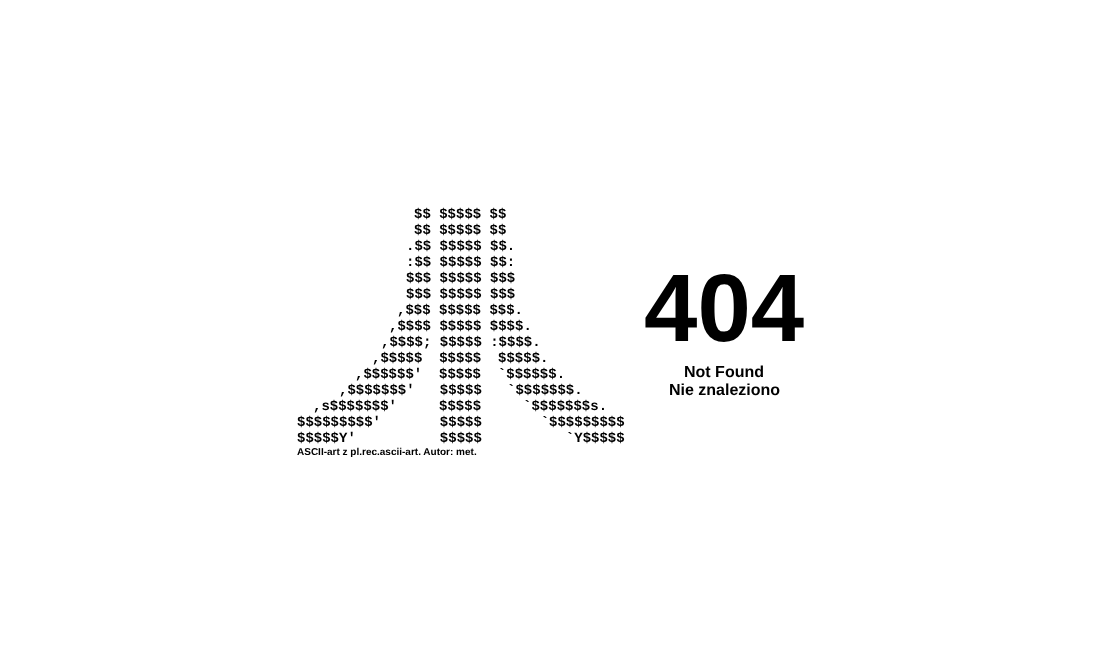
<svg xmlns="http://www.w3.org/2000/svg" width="1101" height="663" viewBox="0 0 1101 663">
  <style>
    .t1 { font: bold 14px Liberation Mono; fill: #000; }
    .t2 { font: bold 96px Liberation Sans; fill: #000; }
    .t3 { font: bold 16px Liberation Sans; fill: #000; }
    .t4 { font: bold 10px Liberation Sans; fill: #000; }
  </style>
  <rect width="100%" height="100%" fill="#fff"/>
  <text x="414" y="218" class="t1">$$ $$$$$ $$</text>
  <text x="414" y="234" class="t1">$$ $$$$$ $$</text>
  <text x="406" y="250" class="t1">.$$ $$$$$ $$.</text>
  <text x="406" y="266" class="t1">:$$ $$$$$ $$:</text>
  <text x="406" y="282" class="t1">$$$ $$$$$ $$$</text>
  <text x="406" y="298" class="t1">$$$ $$$$$ $$$</text>
  <text x="397" y="314" class="t1">,$$$ $$$$$ $$$.</text>
  <text x="389" y="330" class="t1">,$$$$ $$$$$ $$$$.</text>
  <text x="381" y="346" class="t1">,$$$$; $$$$$ :$$$$.</text>
  <text x="372" y="362" class="t1" xml:space="preserve">,$$$$$  $$$$$  $$$$$.</text>
  <text x="355" y="378" class="t1" xml:space="preserve">,$$$$$$'  $$$$$  `$$$$$$.</text>
  <text x="339" y="394" class="t1" xml:space="preserve">,$$$$$$$'   $$$$$   `$$$$$$$.</text>
  <text x="313" y="410" class="t1" xml:space="preserve">,s$$$$$$$'     $$$$$     `$$$$$$$s.</text>
  <text x="297" y="426" class="t1" xml:space="preserve">$$$$$$$$$'       $$$$$       `$$$$$$$$$</text>
  <text x="297" y="442" class="t1" xml:space="preserve">$$$$$Y'          $$$$$          `Y$$$$$</text>
  <text x="644" y="341" class="t2">404</text>
  <text x="684" y="377" class="t3">Not Found</text>
  <text x="669" y="395" class="t3">Nie znaleziono</text>
  <text x="297" y="455" class="t4">ASCII-art z pl.rec.ascii-art. Autor: met.</text>
</svg>
